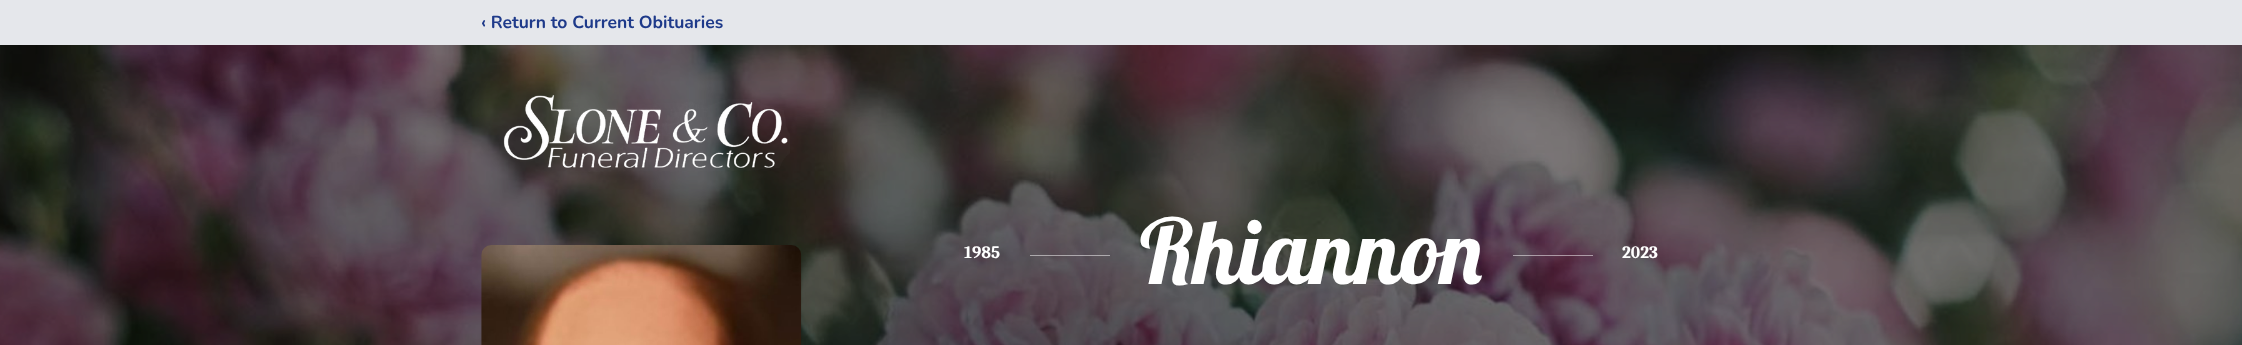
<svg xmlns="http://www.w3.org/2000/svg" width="2242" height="345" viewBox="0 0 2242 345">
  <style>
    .t1 { font: bold 17.5px Nunito; fill: #1e3a8a; }
    .t2 { font: bold 17.5px Caladea; fill: #fff; }
    .t3 { font: 90px Lobster; fill: #fff; }
  </style>
  <rect width="100%" height="100%" fill="#e5e7eb"/>
  <text x="481" y="28" class="t1">‹ Return to Current Obituaries</text>
  <image x="0" y="45" width="2242" height="300" href="images/1.png"/>
  <image x="503" y="95" width="287" height="77" href="images/2.png"/>
  <image x="481" y="245" width="321" height="100" href="images/3.png"/>
  <text x="964" y="258" class="t2">1985</text>
  <rect x="1030" y="255" width="80" height="1" fill="#ffffff80"/>
  <text x="1140" y="284" class="t3">Rhiannon</text>
  <rect x="1513" y="255" width="80" height="1" fill="#ffffff80"/>
  <text x="1622" y="258" class="t2">2023</text>
</svg>
